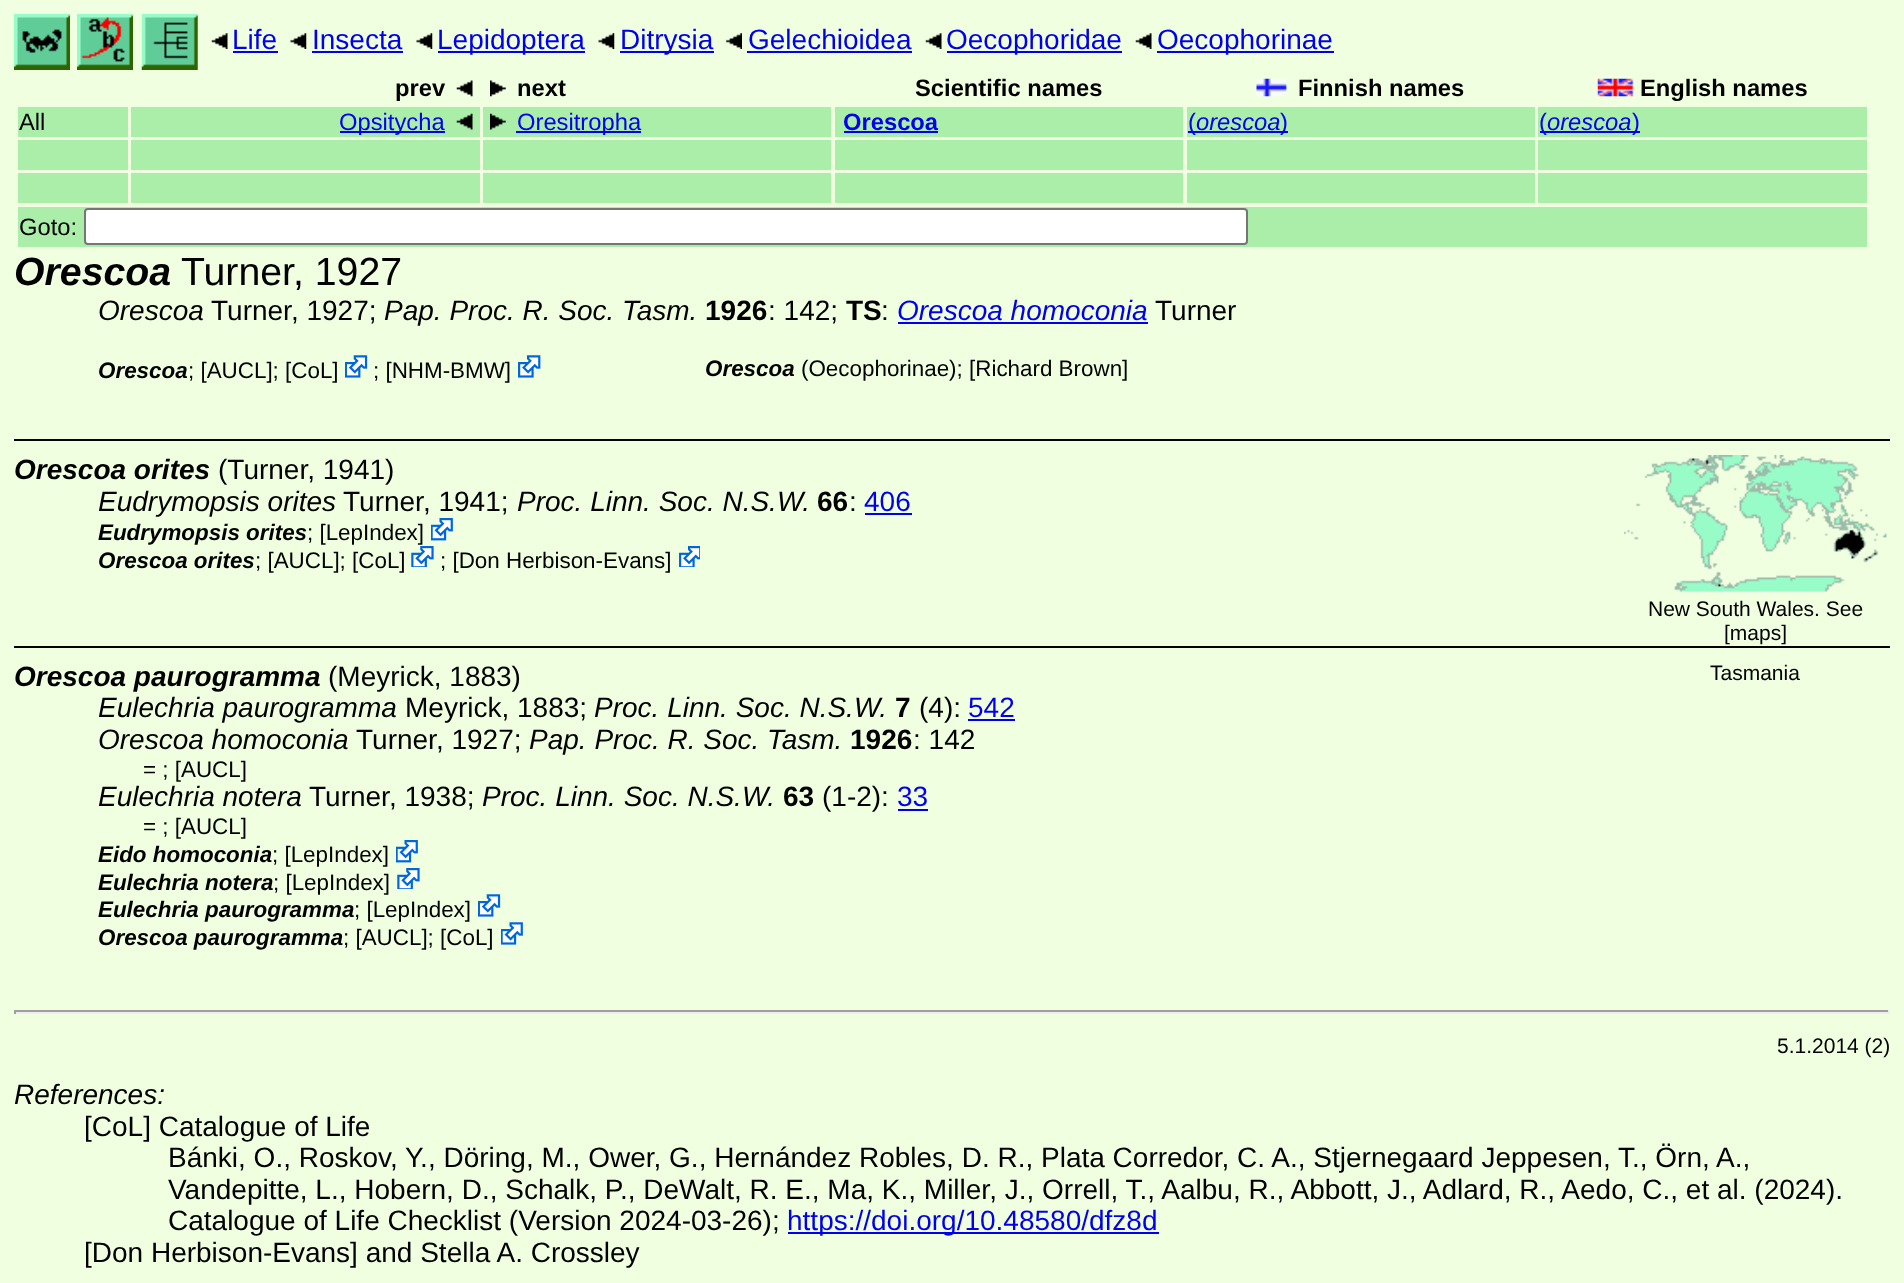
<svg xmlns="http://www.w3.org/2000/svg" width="1904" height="1283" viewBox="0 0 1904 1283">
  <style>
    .t1 { font: 28px Liberation Sans; fill: #00e; }
    .t2 { font: bold 23.75px Liberation Sans; fill: #000; }
    .t3 { font: 23.75px Liberation Sans; fill: #000; }
    .t4 { font: 23.75px Liberation Sans; fill: #00e; }
    .t5 { font: bold 23.75px Liberation Sans; fill: #00e; }
    .t6 { font: italic 23.75px Liberation Sans; fill: #00e; }
    .t7 { font: italic bold 39.25px Liberation Sans; fill: #000; }
    .t8 { font: 39.25px Liberation Sans; fill: #000; }
    .t9 { font: italic 28px Liberation Sans; fill: #000; }
    .t10 { font: 28px Liberation Sans; fill: #000; }
    .t11 { font: bold 28px Liberation Sans; fill: #000; }
    .t12 { font: italic 28px Liberation Sans; fill: #00e; }
    .t13 { font: italic bold 22.4px Liberation Sans; fill: #000; }
    .t14 { font: 22.4px Liberation Sans; fill: #000; }
    .t15 { font: italic bold 28px Liberation Sans; fill: #000; }
    .t16 { font: 21px Liberation Sans; fill: #000; }
  </style>
  <rect width="100%" height="100%" fill="#f0ffe0"/>
  <image x="14" y="14" width="56" height="56" href="images/1.png"/>
  <image x="77" y="14" width="56" height="56" href="images/2.png"/>
  <image x="141" y="14" width="57" height="56" href="images/3.png"/>
  <image x="211" y="33" width="17" height="16" href="images/4.png"/>
  <text x="232" y="49" class="t1">Life</text>
  <rect x="233" y="51" width="45" height="2" fill="#00e"/>
  <image x="290" y="33" width="17" height="16" href="images/5.png"/>
  <text x="312" y="49" class="t1">Insecta</text>
  <rect x="312" y="51" width="91" height="2" fill="#00e"/>
  <image x="416" y="33" width="17" height="16" href="images/6.png"/>
  <rect x="438" y="51" width="147" height="2" fill="#00e"/>
  <text x="437" y="49" class="t1">Lepidoptera</text>
  <image x="598" y="33" width="17" height="16" href="images/7.png"/>
  <rect x="620" y="51" width="94" height="2" fill="#00e"/>
  <text x="620" y="49" class="t1">Ditrysia</text>
  <image x="726" y="33" width="16" height="16" href="images/8.png"/>
  <text x="748" y="49" class="t1">Gelechioidea</text>
  <rect x="747" y="51" width="165" height="2" fill="#00e"/>
  <image x="925" y="33" width="17" height="16" href="images/4.png"/>
  <rect x="947" y="51" width="175" height="2" fill="#00e"/>
  <text x="946" y="49" class="t1">Oecophoridae</text>
  <image x="1135" y="33" width="17" height="16" href="images/4.png"/>
  <rect x="1157" y="51" width="177" height="2" fill="#00e"/>
  <text x="1157" y="49" class="t1">Oecophorinae</text>
  <text x="395" y="96" class="t2">prev</text>
  <image x="456" y="80" width="17" height="17" href="images/9.png"/>
  <image x="490" y="80" width="16" height="17" href="images/10.png"/>
  <text x="517" y="96" class="t2">next</text>
  <text x="915" y="96" class="t2">Scientific names</text>
  <image x="1256" y="78" width="31" height="19" href="images/11.png"/>
  <text x="1298" y="96" class="t2">Finnish names</text>
  <image x="1597" y="78" width="37" height="19" href="images/12.png"/>
  <text x="1640" y="96" class="t2">English names</text>
  <rect x="18" y="107" width="110" height="30" fill="#aea"/>
  <text x="19" y="130" class="t3">All</text>
  <rect x="131" y="107" width="349" height="30" fill="#aea"/>
  <rect x="340" y="131" width="105" height="2" fill="#00e"/>
  <text x="339" y="130" class="t4">Opsitycha</text>
  <image x="456" y="113" width="17" height="17" href="images/13.png"/>
  <rect x="483" y="107" width="348" height="30" fill="#aea"/>
  <image x="490" y="113" width="16" height="17" href="images/14.png"/>
  <rect x="516" y="131" width="125" height="2" fill="#00e"/>
  <text x="517" y="130" class="t4">Oresitropha</text>
  <rect x="835" y="107" width="348" height="30" fill="#aea"/>
  <text x="843" y="130" class="t5">Orescoa</text>
  <rect x="844" y="131" width="94" height="2" fill="#00e"/>
  <rect x="1187" y="107" width="348" height="30" fill="#aea"/>
  <rect x="1188" y="131" width="7" height="2" fill="#00e"/>
  <text x="1188" y="130" class="t4">(</text>
  <text x="1196" y="130" class="t6">orescoa</text>
  <rect x="1195" y="131" width="93" height="2" fill="#00e"/>
  <text x="1280" y="130" class="t4">)</text>
  <rect x="1538" y="107" width="329" height="30" fill="#aea"/>
  <rect x="1540" y="131" width="7" height="2" fill="#00e"/>
  <text x="1539" y="130" class="t4">(</text>
  <text x="1547" y="130" class="t6">orescoa</text>
  <rect x="1547" y="131" width="93" height="2" fill="#00e"/>
  <text x="1632" y="130" class="t4">)</text>
  <rect x="18" y="140" width="110" height="30" fill="#aea"/>
  <rect x="131" y="140" width="349" height="30" fill="#aea"/>
  <rect x="483" y="140" width="348" height="30" fill="#aea"/>
  <rect x="835" y="140" width="348" height="30" fill="#aea"/>
  <rect x="1187" y="140" width="348" height="30" fill="#aea"/>
  <rect x="1538" y="140" width="329" height="30" fill="#aea"/>
  <rect x="18" y="173" width="110" height="30" fill="#aea"/>
  <rect x="131" y="173" width="349" height="30" fill="#aea"/>
  <rect x="483" y="173" width="348" height="30" fill="#aea"/>
  <rect x="835" y="173" width="348" height="30" fill="#aea"/>
  <rect x="1187" y="173" width="348" height="30" fill="#aea"/>
  <rect x="1538" y="173" width="329" height="30" fill="#aea"/>
  <rect x="18" y="207" width="1849" height="40" fill="#aea"/>
  <text x="19" y="235" class="t3">Goto:</text>
  <rect x="85" y="209" width="1162" height="35" rx="3" fill="#fff" stroke="#767676" stroke-width="2"/>
  <text x="14" y="285" class="t7">Orescoa</text>
  <text x="181" y="285" class="t8">Turner, 1927</text>
  <text x="98" y="320" class="t9">Orescoa</text>
  <text x="211" y="320" class="t10">Turner, 1927;</text>
  <text x="384" y="320" class="t9">Pap. Proc. R. Soc. Tasm.</text>
  <text x="705" y="320" class="t11">1926</text>
  <text x="768" y="320" class="t10">: 142;</text>
  <text x="846" y="320" class="t11">TS</text>
  <text x="881" y="320" class="t10">:</text>
  <text x="897" y="320" class="t12">Orescoa homoconia</text>
  <rect x="898" y="322" width="250" height="2" fill="#00e"/>
  <text x="1155" y="320" class="t10">Turner</text>
  <text x="98" y="378" class="t13">Orescoa</text>
  <text x="188" y="378" class="t14">; [AUCL]; [CoL]</text>
  <image x="345" y="355" width="23" height="23" href="images/15.png"/>
  <text x="373" y="378" class="t14">; [NHM-BMW]</text>
  <image x="518" y="355" width="23" height="23" href="images/16.png"/>
  <text x="705" y="376" class="t13">Orescoa</text>
  <text x="801" y="376" class="t14">(Oecophorinae); [Richard Brown]</text>
  <rect x="14" y="439" width="1876" height="2" fill="#000"/>
  <text x="14" y="479" class="t15">Orescoa orites</text>
  <text x="218" y="479" class="t10">(Turner, 1941)</text>
  <text x="98" y="511" class="t9">Eudrymopsis orites</text>
  <text x="343" y="511" class="t10">Turner, 1941;</text>
  <text x="517" y="511" class="t9">Proc. Linn. Soc. N.S.W.</text>
  <text x="817" y="511" class="t11">66</text>
  <text x="849" y="511" class="t10">:</text>
  <text x="864" y="511" class="t1">406</text>
  <rect x="865" y="513" width="47" height="2" fill="#00e"/>
  <text x="98" y="540" class="t13">Eudrymopsis orites</text>
  <text x="307" y="540" class="t14">; [LepIndex]</text>
  <image x="431" y="518" width="22" height="23" href="images/17.png"/>
  <text x="98" y="568" class="t13">Orescoa orites</text>
  <text x="255" y="568" class="t14">; [AUCL]; [CoL]</text>
  <image x="411" y="546" width="23" height="21" href="images/18.png"/>
  <text x="440" y="568" class="t14">; [Don Herbison-Evans]</text>
  <image x="679" y="546" width="21" height="21" href="images/19.png"/>
  <image x="1624" y="455" width="263" height="137" href="images/20.png"/>
  <text x="1648" y="616" class="t16">New South Wales. See</text>
  <text x="1724" y="640" class="t16">[maps]</text>
  <rect x="14" y="646" width="1876" height="2" fill="#000"/>
  <text x="14" y="686" class="t15">Orescoa paurogramma</text>
  <text x="328" y="686" class="t10">(Meyrick, 1883)</text>
  <text x="1710" y="680" class="t16">Tasmania</text>
  <text x="98" y="717" class="t9">Eulechria paurogramma</text>
  <text x="405" y="717" class="t10">Meyrick, 1883;</text>
  <text x="594" y="717" class="t9">Proc. Linn. Soc. N.S.W.</text>
  <text x="895" y="717" class="t11">7</text>
  <text x="919" y="717" class="t10">(4):</text>
  <text x="968" y="717" class="t1">542</text>
  <rect x="968" y="719" width="47" height="2" fill="#00e"/>
  <text x="98" y="749" class="t9">Orescoa homoconia</text>
  <text x="356" y="749" class="t10">Turner, 1927;</text>
  <text x="529" y="749" class="t9">Pap. Proc. R. Soc. Tasm.</text>
  <text x="850" y="749" class="t11">1926</text>
  <text x="913" y="749" class="t10">: 142</text>
  <text x="143" y="777" class="t14">= ; [AUCL]</text>
  <text x="98" y="806" class="t9">Eulechria notera</text>
  <text x="309" y="806" class="t10">Turner, 1938;</text>
  <text x="482" y="806" class="t9">Proc. Linn. Soc. N.S.W.</text>
  <text x="783" y="806" class="t11">63</text>
  <text x="822" y="806" class="t10">(1-2):</text>
  <text x="897" y="806" class="t1">33</text>
  <rect x="898" y="809" width="30" height="2" fill="#00e"/>
  <text x="143" y="834" class="t14">= ; [AUCL]</text>
  <text x="98" y="862" class="t13">Eido homoconia</text>
  <text x="272" y="862" class="t14">; [LepIndex]</text>
  <image x="396" y="840" width="22" height="23" href="images/17.png"/>
  <text x="98" y="890" class="t13">Eulechria notera</text>
  <text x="273" y="890" class="t14">; [LepIndex]</text>
  <image x="397" y="868" width="23" height="21" href="images/18.png"/>
  <text x="98" y="917" class="t13">Eulechria paurogramma</text>
  <text x="354" y="917" class="t14">; [LepIndex]</text>
  <image x="478" y="894" width="23" height="23" href="images/15.png"/>
  <text x="98" y="945" class="t13">Orescoa paurogramma</text>
  <text x="343" y="945" class="t14">; [AUCL]; [CoL]</text>
  <image x="501" y="922" width="22" height="23" href="images/21.png"/>
  <rect x="14" y="1010" width="1876" height="2" fill="#9f9f9f"/>
  <rect x="1888" y="1010" width="2" height="4" fill="#eee"/>
  <rect x="14" y="1012" width="1876" height="2" fill="#eee"/>
  <rect x="14" y="1010" width="2" height="4" fill="#9f9f9f"/>
  <text x="1777" y="1053" class="t16">5.1.2014 (2)</text>
  <text x="14" y="1104" class="t9">References:</text>
  <text x="84" y="1136" class="t10">[CoL] Catalogue of Life</text>
  <text x="168" y="1167" class="t10">Bánki, O., Roskov, Y., Döring, M., Ower, G., Hernández Robles, D. R., Plata Corredor, C. A., Stjernegaard Jeppesen, T., Örn, A.,</text>
  <text x="168" y="1199" class="t10">Vandepitte, L., Hobern, D., Schalk, P., DeWalt, R. E., Ma, K., Miller, J., Orrell, T., Aalbu, R., Abbott, J., Adlard, R., Aedo, C., et al. (2024).</text>
  <text x="168" y="1230" class="t10">Catalogue of Life Checklist (Version 2024-03-26);</text>
  <rect x="788" y="1232" width="371" height="2" fill="#00e"/>
  <text x="787" y="1230" class="t1">https://doi.org/10.48580/dfz8d</text>
  <text x="84" y="1262" class="t10">[Don Herbison-Evans] and Stella A. Crossley</text>
</svg>
